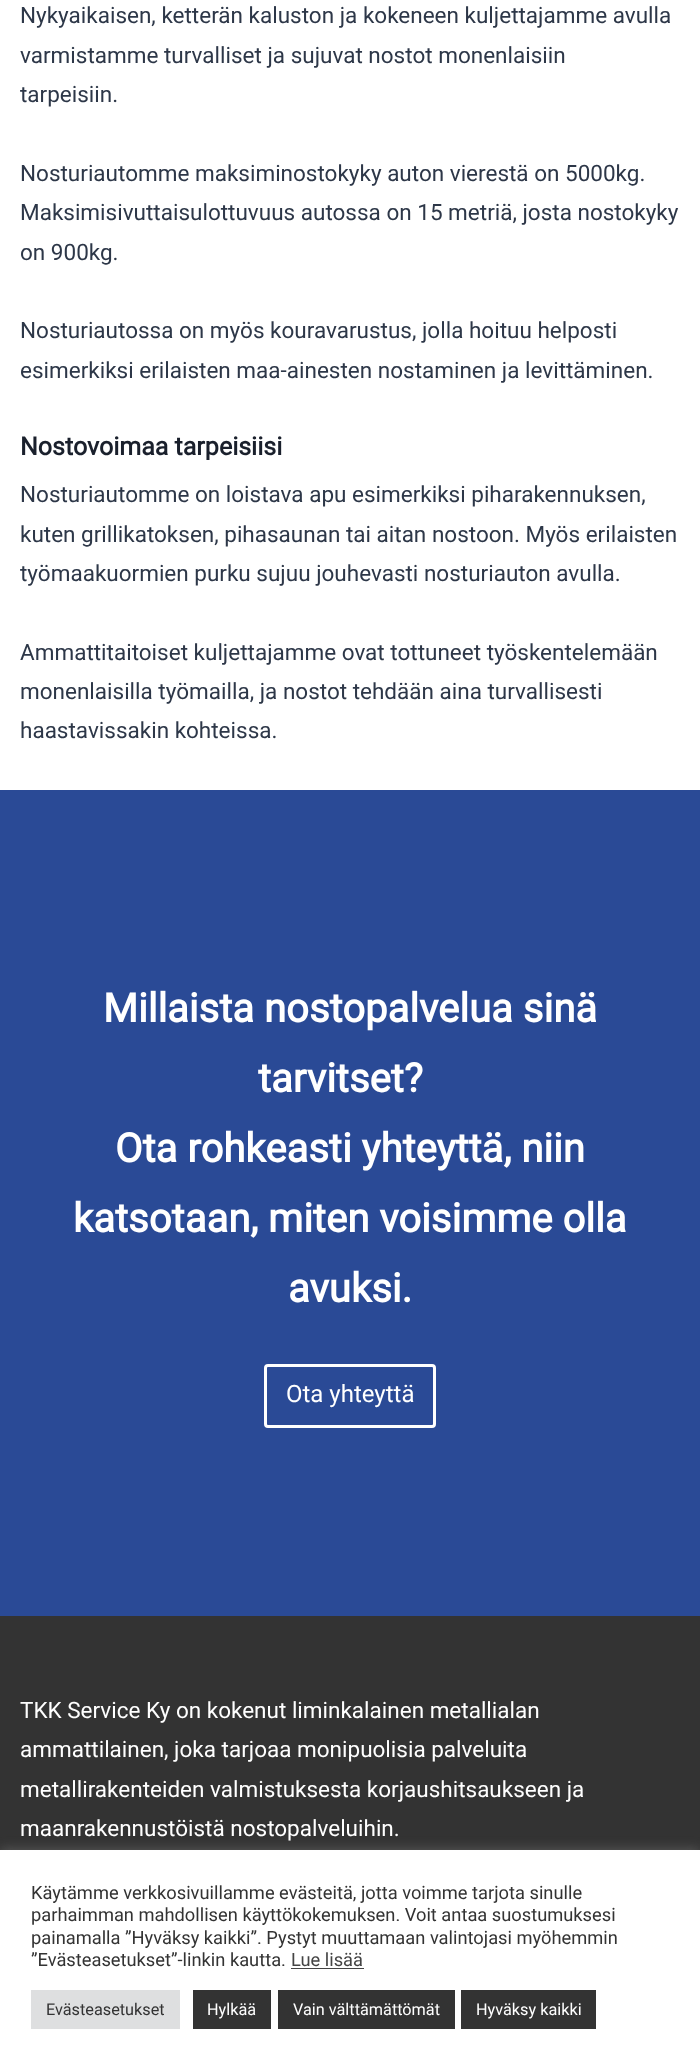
<svg xmlns="http://www.w3.org/2000/svg" width="700" height="2066" viewBox="0 0 700 2066">
  <style>
    .t1 { font: 22.5px Roboto; fill: #2d3748; }
    .t2 { font: bold 25px Roboto; fill: #1a202c; }
    .t3 { font: bold 40px Roboto; fill: #fff; }
    .t4 { font: 24px Roboto; fill: #fff; }
    .t5 { font: 22.5px Roboto; fill: #fff; }
    .t6 { font: 18.3px Roboto; fill: #333; }
    .t7 { font: 18.3px Roboto; fill: #444; }
    .t8 { font: 16.25px Roboto; fill: #333; }
    .t9 { font: 16.25px Roboto; fill: #fff; }
  </style>
  <rect width="100%" height="100%" fill="#fff"/>
  <text x="20" y="23" class="t1">Nykyaikaisen, ketterän kaluston ja kokeneen kuljettajamme avulla</text>
  <text x="20" y="63" class="t1">varmistamme turvalliset ja sujuvat nostot monenlaisiin</text>
  <text x="20" y="102" class="t1">tarpeisiin.</text>
  <text x="20" y="181" class="t1">Nosturiautomme maksiminostokyky auton vierestä on 5000kg.</text>
  <text x="20" y="220" class="t1">Maksimisivuttaisulottuvuus autossa on 15 metriä, josta nostokyky</text>
  <text x="20" y="260" class="t1">on 900kg.</text>
  <text x="20" y="338" class="t1">Nosturiautossa on myös kouravarustus, jolla hoituu helposti</text>
  <text x="20" y="378" class="t1">esimerkiksi erilaisten maa-ainesten nostaminen ja levittäminen.</text>
  <text x="20" y="455" class="t2">Nostovoimaa tarpeisiisi</text>
  <text x="20" y="502" class="t1">Nosturiautomme on loistava apu esimerkiksi piharakennuksen,</text>
  <text x="20" y="542" class="t1">kuten grillikatoksen, pihasaunan tai aitan nostoon. Myös erilaisten</text>
  <text x="20" y="581" class="t1">työmaakuormien purku sujuu jouhevasti nosturiauton avulla.</text>
  <text x="20" y="660" class="t1">Ammattitaitoiset kuljettajamme ovat tottuneet työskentelemään</text>
  <text x="20" y="699" class="t1">monenlaisilla työmailla, ja nostot tehdään aina turvallisesti</text>
  <text x="20" y="738" class="t1">haastavissakin kohteissa.</text>
  <rect x="0" y="790" width="700" height="826" fill="#2a4a96"/>
  <text x="103" y="1022" class="t3">Millaista nostopalvelua sinä</text>
  <text x="258" y="1092" class="t3">tarvitset?</text>
  <text x="115" y="1162" class="t3">Ota rohkeasti yhteyttä, niin</text>
  <text x="73" y="1232" class="t3">katsotaan, miten voisimme olla</text>
  <text x="288" y="1302" class="t3">avuksi.</text>
  <rect x="265.5" y="1365.5" width="169" height="61" rx="2.5" fill="none" stroke="#fff" stroke-width="3"/>
  <text x="286" y="1402" class="t4">Ota yhteyttä</text>
  <rect x="0" y="1616" width="700" height="234" fill="#333"/>
  <text x="20" y="1718" class="t5">TKK Service Ky on kokenut liminkalainen metallialan</text>
  <text x="20" y="1757" class="t5">ammattilainen, joka tarjoaa monipuolisia palveluita</text>
  <text x="20" y="1797" class="t5">metallirakenteiden valmistuksesta korjaushitsaukseen ja</text>
  <text x="20" y="1836" class="t5">maanrakennustöistä nostopalveluihin.</text>
  <rect x="0" y="1849" width="700" height="216" fill="#acabab4d" filter="blur(6px)"/>
  <rect x="0" y="1850" width="700" height="216" fill="#fff"/>
  <text x="31" y="1899" class="t6">Käytämme verkkosivuillamme evästeitä, jotta voimme tarjota sinulle</text>
  <text x="31" y="1921" class="t6">parhaimman mahdollisen käyttökokemuksen. Voit antaa suostumuksesi</text>
  <text x="31" y="1944" class="t6">painamalla ”Hyväksy kaikki”. Pystyt muuttamaan valintojasi myöhemmin</text>
  <text x="31" y="1966" class="t6">”Evästeasetukset”-linkin kautta.</text>
  <text x="291" y="1966" class="t7">Lue lisää</text>
  <rect x="291" y="1968" width="73" height="1" fill="#444"/>
  <rect x="31" y="1990" width="149" height="39" fill="#dedfe0"/>
  <text x="46" y="2015" class="t8">Evästeasetukset</text>
  <rect x="193" y="1990" width="78" height="39" fill="#333"/>
  <text x="207" y="2015" class="t9">Hylkää</text>
  <rect x="278" y="1990" width="177" height="39" fill="#333"/>
  <text x="293" y="2015" class="t9">Vain välttämättömät</text>
  <rect x="461" y="1990" width="135" height="39" fill="#333"/>
  <text x="476" y="2015" class="t9">Hyväksy kaikki</text>
</svg>
